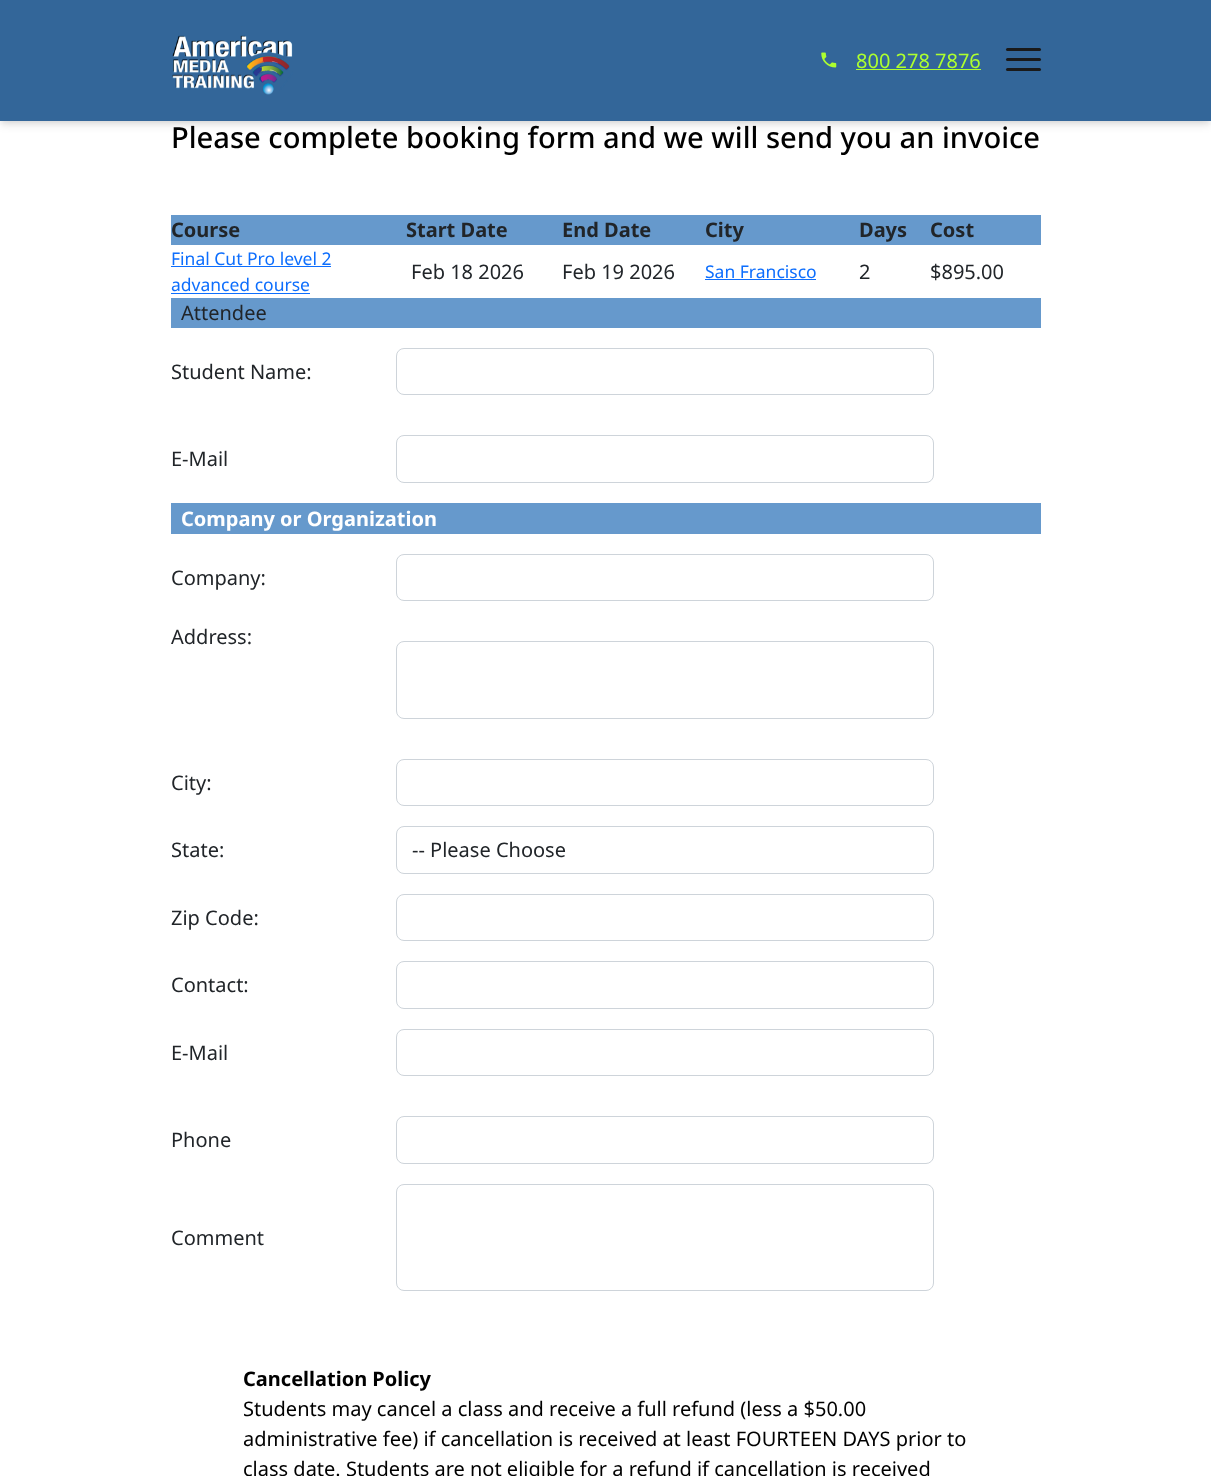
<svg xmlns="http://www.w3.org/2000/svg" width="1211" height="1476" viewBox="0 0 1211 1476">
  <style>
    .t1 { font: 20px Noto Sans; fill: #adff2f; }
    .t2 { font: 500 29.1px Noto Sans; fill: #000; }
    .t3 { font: bold 20px Noto Sans; fill: #212529; }
    .t4 { font: 17.5px Noto Sans; fill: #0d6efd; }
    .t5 { font: 20px Noto Sans; fill: #212529; }
    .t6 { font: bold 20px Noto Sans; fill: #fff; }
    .t7 { font: bold 20px Noto Sans; fill: #000; }
    .t8 { font: 20px Noto Sans; fill: #000; }
  </style>
  <rect width="100%" height="100%" fill="#fff"/>
  <rect x="1" y="4" width="1209" height="119" fill="#0000000f" filter="blur(2.5px)"/>
  <rect x="1" y="6" width="1209" height="119" fill="#0000001a" filter="blur(4px)"/>
  <rect x="0" y="0" width="1211" height="121" fill="#369"/>
  <image x="172" y="35" width="121" height="60" href="images/1.png"/>
  <image x="821" y="52" width="16" height="16" href="images/2.png"/>
  <text x="856" y="68" class="t1">800 278 7876</text>
  <rect x="856" y="69" width="125" height="1" fill="#adff2f"/>
  <rect x="1006" y="48" width="35" height="3" rx="1.5" fill="#1a1a1a"/>
  <rect x="1006" y="58" width="35" height="3" rx="1.5" fill="#1a1a1a"/>
  <rect x="1006" y="68" width="35" height="3" rx="1.5" fill="#1a1a1a"/>
  <text x="171" y="148" class="t2">Please complete booking form and we will send you an invoice</text>
  <rect x="171" y="215" width="870" height="30" fill="#69c"/>
  <text x="171" y="237" class="t3">Course</text>
  <text x="406" y="237" class="t3">Start Date</text>
  <text x="562" y="237" class="t3">End Date</text>
  <text x="705" y="237" class="t3">City</text>
  <text x="859" y="237" class="t3">Days</text>
  <text x="930" y="237" class="t3">Cost</text>
  <text x="171" y="265" class="t4">Final Cut Pro level 2</text>
  <rect x="171" y="266" width="160" height="1" fill="#0d6efd"/>
  <text x="171" y="291" class="t4">advanced course</text>
  <rect x="171" y="293" width="139" height="1" fill="#0d6efd"/>
  <text x="411" y="279" class="t5">Feb 18 2026</text>
  <text x="562" y="279" class="t5">Feb 19 2026</text>
  <text x="705" y="278" class="t4">San Francisco</text>
  <rect x="705" y="279" width="111" height="1" fill="#0d6efd"/>
  <text x="859" y="279" class="t5">2</text>
  <text x="930" y="279" class="t5">$895.00</text>
  <rect x="171" y="298" width="870" height="30" fill="#69c"/>
  <text x="181" y="320" class="t5">Attendee</text>
  <text x="171" y="379" class="t5">Student Name:</text>
  <rect x="396.5" y="348.5" width="537" height="46" rx="7.5" fill="none" stroke="#ced4da"/>
  <text x="171" y="466" class="t5">E-Mail</text>
  <rect x="396.5" y="435.5" width="537" height="47" rx="7.5" fill="none" stroke="#ced4da"/>
  <rect x="171" y="503" width="870" height="31" fill="#69c"/>
  <text x="181" y="526" class="t6">Company or Organization</text>
  <text x="171" y="585" class="t5">Company:</text>
  <rect x="396.5" y="554.5" width="537" height="46" rx="7.5" fill="none" stroke="#ced4da"/>
  <text x="171" y="644" class="t5">Address:</text>
  <rect x="396.5" y="641.5" width="537" height="77" rx="7.5" fill="none" stroke="#ced4da"/>
  <text x="171" y="790" class="t5">City:</text>
  <rect x="396.5" y="759.5" width="537" height="46" rx="7.5" fill="none" stroke="#ced4da"/>
  <text x="171" y="857" class="t5">State:</text>
  <rect x="396.5" y="826.5" width="537" height="47" rx="7.5" fill="none" stroke="#ced4da"/>
  <text x="412" y="857" class="t5">-- Please Choose</text>
  <text x="171" y="925" class="t5">Zip Code:</text>
  <rect x="396.5" y="894.5" width="537" height="46" rx="7.5" fill="none" stroke="#ced4da"/>
  <text x="171" y="992" class="t5">Contact:</text>
  <rect x="396.5" y="961.5" width="537" height="47" rx="7.5" fill="none" stroke="#ced4da"/>
  <text x="171" y="1060" class="t5">E-Mail</text>
  <rect x="396.5" y="1029.5" width="537" height="46" rx="7.5" fill="none" stroke="#ced4da"/>
  <text x="171" y="1147" class="t5">Phone</text>
  <rect x="396.5" y="1116.5" width="537" height="47" rx="7.5" fill="none" stroke="#ced4da"/>
  <text x="171" y="1245" class="t5">Comment</text>
  <rect x="396.5" y="1184.5" width="537" height="106" rx="7.5" fill="none" stroke="#ced4da"/>
  <text x="243" y="1386" class="t7">Cancellation Policy</text>
  <text x="243" y="1416" class="t8">Students may cancel a class and receive a full refund (less a $50.00</text>
  <text x="243" y="1446" class="t8">administrative fee) if cancellation is received at least FOURTEEN DAYS prior to</text>
  <text x="243" y="1476" class="t8">class date. Students are not eligible for a refund if cancellation is received</text>
</svg>
